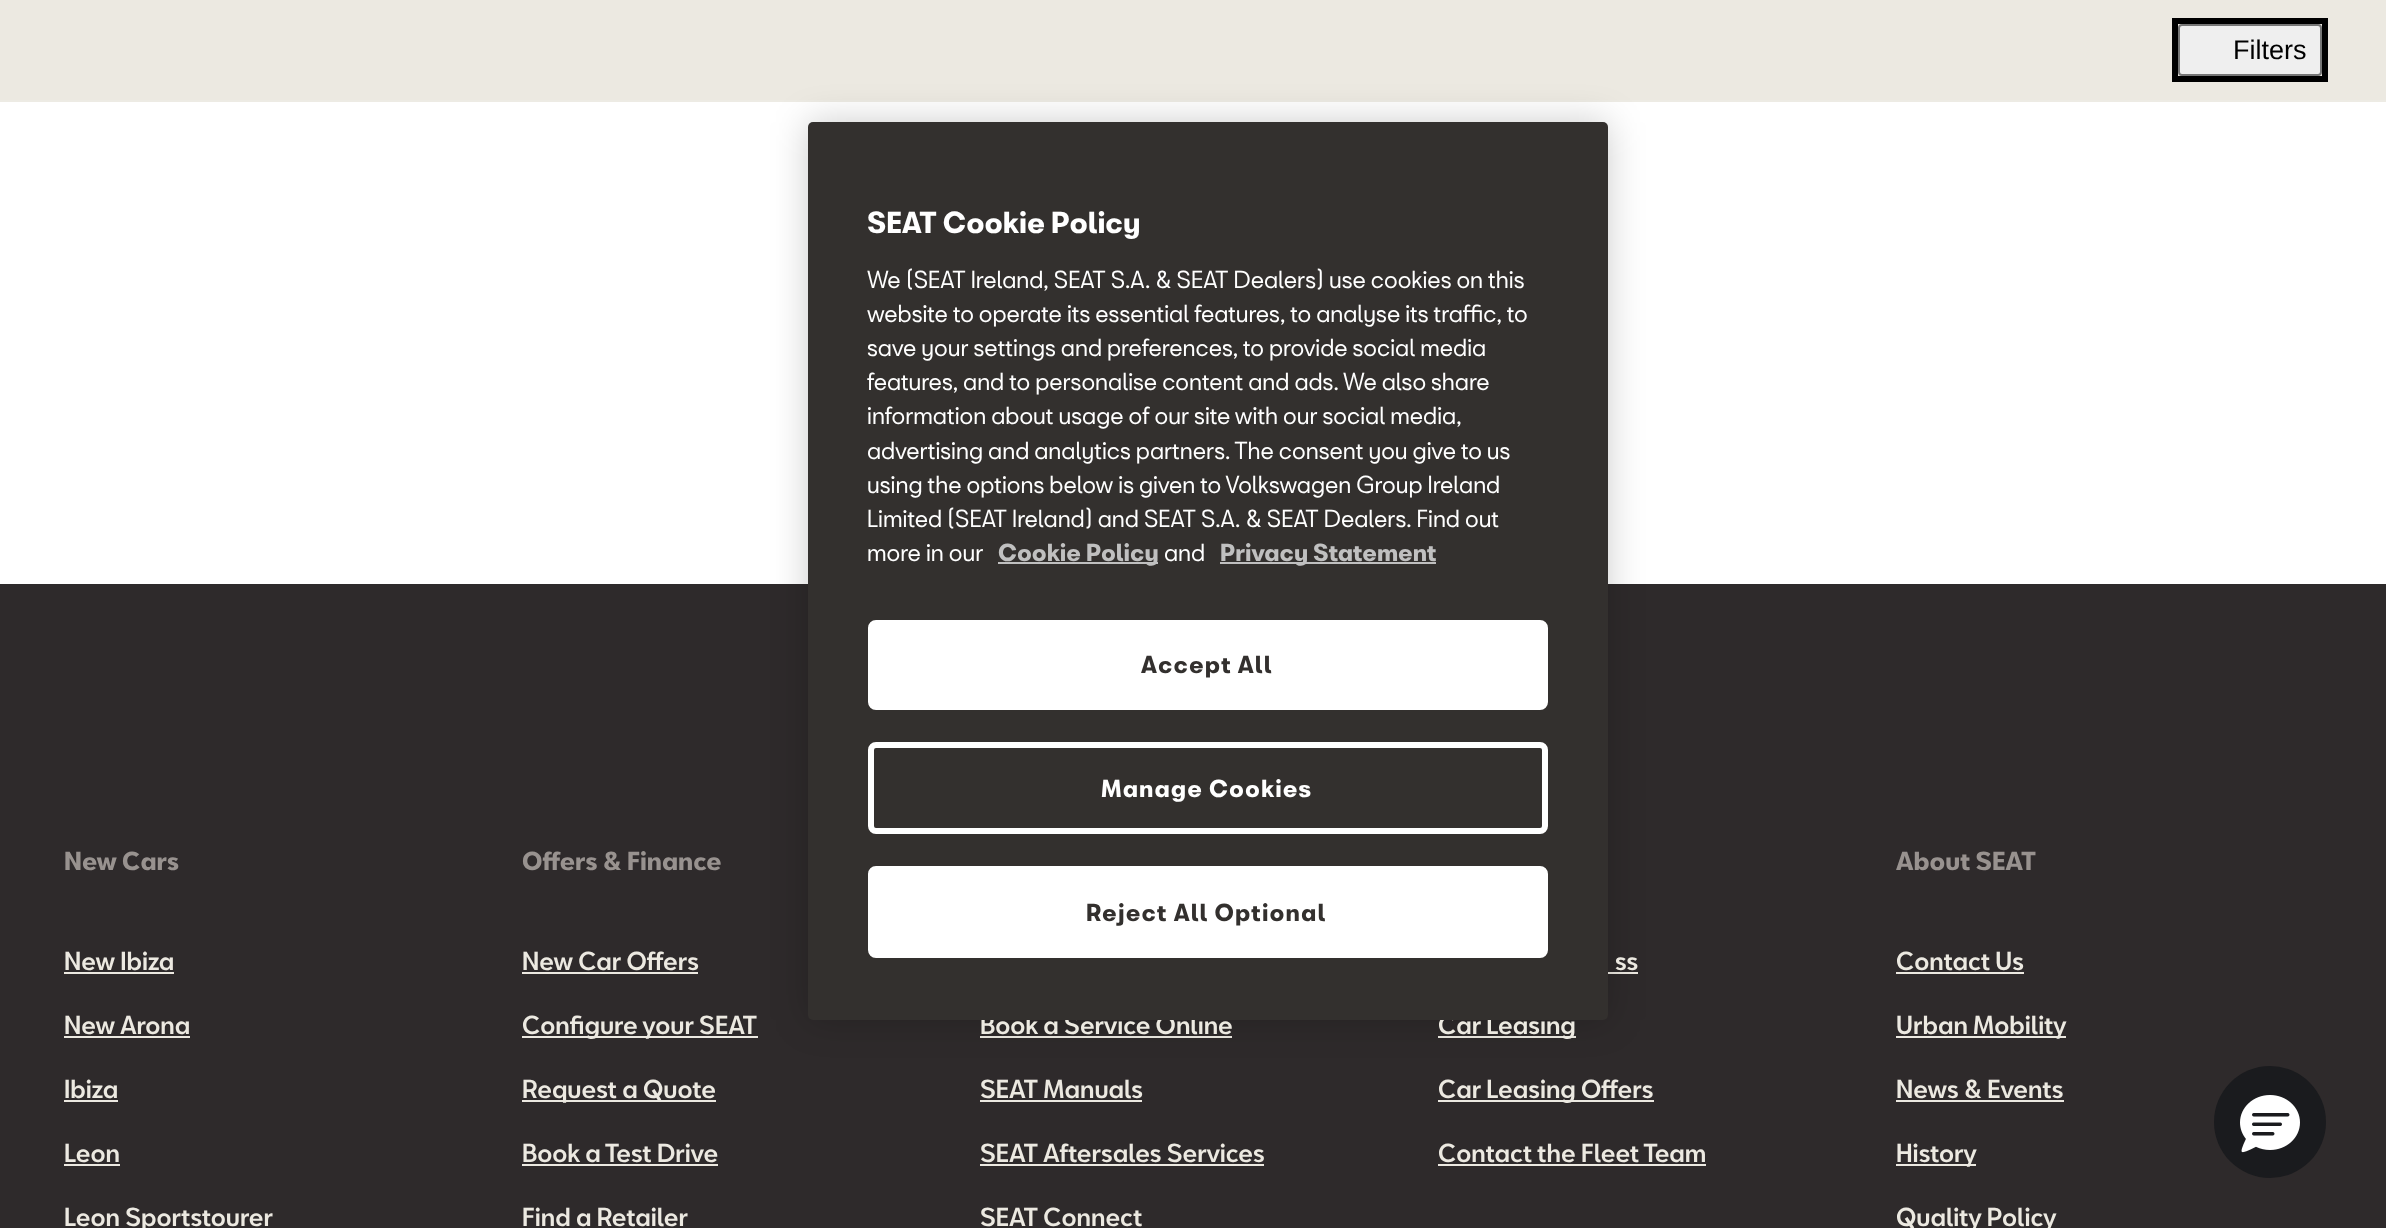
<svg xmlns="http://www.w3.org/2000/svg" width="2386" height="1228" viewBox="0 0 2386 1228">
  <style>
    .t1 { font: 27px Liberation Sans; fill: #000; }
    .t2 { font: 500 24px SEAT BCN; fill: #ece9e1; }
    .t3 { font: bold 28px 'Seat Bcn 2'; fill: #fff; }
    .t4 { font: 22.75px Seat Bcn; fill: #fff; }
    .t5 { font: bold 22.75px 'Seat Bcn 2'; fill: #c0c0c0; }
    .t6 { font: bold 22.75px 'Seat Bcn 2'; letter-spacing: 1.1px; fill: #33302e; }
    .t7 { font: bold 22.75px 'Seat Bcn 2'; letter-spacing: 1.1px; fill: #fff; }
    .t8 { font: bold 24px SEAT BCN; fill: #98928f; }
  </style>
  <rect width="100%" height="100%" fill="#fff"/>
  <rect x="0" y="0" width="2386" height="100" fill="#ece9e1"/>
  <rect x="0" y="100" width="2386" height="2" fill="#edebe4"/>
  <rect x="2179" y="25" width="142" height="50" rx="3" fill="#efefef" stroke="#767676" stroke-width="2"/>
  <rect x="2175" y="21" width="150" height="58" fill="none" stroke="#000" stroke-width="6"/>
  <text x="2233" y="59" class="t1">Filters</text>
  <rect x="0" y="584" width="2386" height="644" fill="#2e2a2b"/>
  <rect x="522" y="1036" width="236" height="2" fill="#ece9e1"/>
  <rect x="980" y="1036" width="252" height="2" fill="#ece9e1"/>
  <rect x="1608" y="972" width="30" height="2" fill="#ece9e1"/>
  <rect x="1438" y="1036" width="138" height="2" fill="#ece9e1"/>
  <rect x="808" y="122" width="800" height="898" rx="5" fill="#00000033" filter="blur(18px)"/>
  <text x="980" y="1034" class="t2">Book a Service Online</text>
  <text x="1438" y="1034" class="t2">Car Leasing</text>
  <rect x="808" y="122" width="800" height="898" rx="5" fill="#33302e"/>
  <text x="867" y="233" class="t3">SEAT Cookie Policy</text>
  <text x="867" y="288" class="t4">We (SEAT Ireland, SEAT S.A. &amp; SEAT Dealers) use cookies on this</text>
  <text x="867" y="322" class="t4">website to operate its essential features, to analyse its traffic, to</text>
  <text x="867" y="356" class="t4">save your settings and preferences, to provide social media</text>
  <text x="867" y="390" class="t4">features, and to personalise content and ads. We also share</text>
  <text x="867" y="424" class="t4">information about usage of our site with our social media,</text>
  <text x="867" y="459" class="t4">advertising and analytics partners. The consent you give to us</text>
  <text x="867" y="493" class="t4">using the options below is given to Volkswagen Group Ireland</text>
  <text x="867" y="527" class="t4">Limited (SEAT Ireland) and SEAT S.A. &amp; SEAT Dealers. Find out</text>
  <text x="867" y="561" class="t4">more in our</text>
  <rect x="998" y="562" width="160" height="2" fill="#c0c0c0"/>
  <text x="998" y="561" class="t5">Cookie Policy</text>
  <text x="1164" y="561" class="t4">and</text>
  <rect x="1220" y="562" width="216" height="2" fill="#c0c0c0"/>
  <text x="1220" y="561" class="t5">Privacy Statement</text>
  <rect x="871" y="623" width="674" height="84" rx="5" fill="#fff" stroke="#fff" stroke-width="6"/>
  <text x="1141" y="673" class="t6">Accept All</text>
  <rect x="871" y="745" width="674" height="86" rx="5" fill="none" stroke="#fff" stroke-width="6"/>
  <text x="1101" y="797" class="t7">Manage Cookies</text>
  <rect x="871" y="869" width="674" height="86" rx="5" fill="#fff" stroke="#fff" stroke-width="6"/>
  <text x="1086" y="921" class="t6">Reject All Optional</text>
  <text x="64" y="870" class="t8">New Cars</text>
  <text x="64" y="970" class="t2">New Ibiza</text>
  <rect x="64" y="972" width="110" height="2" fill="#ece9e1"/>
  <text x="64" y="1034" class="t2">New Arona</text>
  <rect x="64" y="1036" width="126" height="2" fill="#ece9e1"/>
  <text x="64" y="1098" class="t2">Ibiza</text>
  <rect x="64" y="1100" width="54" height="2" fill="#ece9e1"/>
  <text x="64" y="1162" class="t2">Leon</text>
  <rect x="64" y="1164" width="56" height="2" fill="#ece9e1"/>
  <text x="64" y="1226" class="t2">Leon Sportstourer</text>
  <text x="522" y="870" class="t8">Offers &amp; Finance</text>
  <text x="522" y="970" class="t2">New Car Offers</text>
  <rect x="522" y="972" width="176" height="2" fill="#ece9e1"/>
  <text x="522" y="1034" class="t2">Configure your SEAT</text>
  <rect x="522" y="1100" width="194" height="2" fill="#ece9e1"/>
  <text x="522" y="1098" class="t2">Request a Quote</text>
  <text x="522" y="1162" class="t2">Book a Test Drive</text>
  <rect x="522" y="1164" width="196" height="2" fill="#ece9e1"/>
  <text x="522" y="1226" class="t2">Find a Retailer</text>
  <text x="980" y="1098" class="t2">SEAT Manuals</text>
  <rect x="980" y="1100" width="162" height="2" fill="#ece9e1"/>
  <text x="980" y="1162" class="t2">SEAT Aftersales Services</text>
  <rect x="980" y="1164" width="284" height="2" fill="#ece9e1"/>
  <text x="980" y="1226" class="t2">SEAT Connect</text>
  <text x="1615" y="970" class="t2">ss</text>
  <rect x="1438" y="1100" width="216" height="2" fill="#ece9e1"/>
  <text x="1438" y="1098" class="t2">Car Leasing Offers</text>
  <text x="1438" y="1162" class="t2">Contact the Fleet Team</text>
  <rect x="1438" y="1164" width="268" height="2" fill="#ece9e1"/>
  <text x="1896" y="870" class="t8">About SEAT</text>
  <text x="1896" y="970" class="t2">Contact Us</text>
  <rect x="1896" y="972" width="128" height="2" fill="#ece9e1"/>
  <rect x="1896" y="1036" width="170" height="2" fill="#ece9e1"/>
  <text x="1896" y="1034" class="t2">Urban Mobility</text>
  <text x="1896" y="1098" class="t2">News &amp; Events</text>
  <rect x="1896" y="1100" width="168" height="2" fill="#ece9e1"/>
  <rect x="1896" y="1164" width="80" height="2" fill="#ece9e1"/>
  <text x="1896" y="1162" class="t2">History</text>
  <text x="1896" y="1226" class="t2">Quality Policy</text>
  <circle cx="2270" cy="1122" r="56" fill="#1a1b1e"/>
  <image x="2240" y="1095" width="60" height="58" href="images/1.png"/>
</svg>
